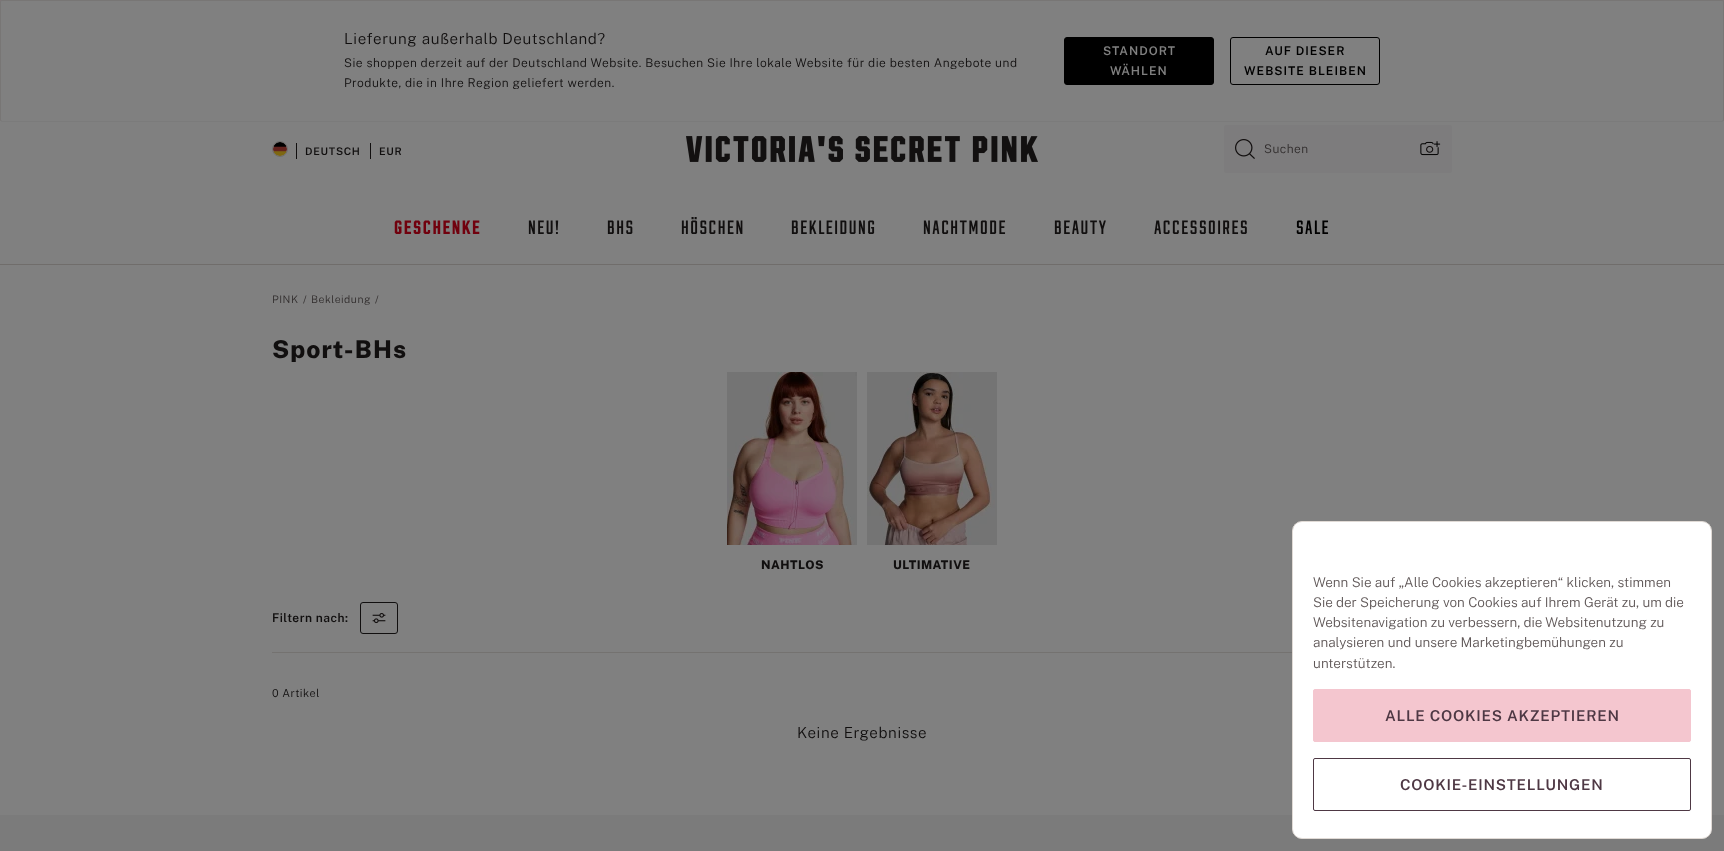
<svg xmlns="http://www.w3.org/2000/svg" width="1724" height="851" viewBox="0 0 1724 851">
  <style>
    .t1 { font: 300 15.2px Public Sans; letter-spacing: 0.6px; fill: #110f0f; }
    .t2 { font: 300 12px Public Sans; letter-spacing: 0.48px; fill: #110f0f; }
    .t3 { font: 600 12px Public Sans; letter-spacing: 1px; fill: #808080; }
    .t4 { font: 600 12px Public Sans; letter-spacing: 1px; fill: #000; }
    .t5 { font: 600 10.5px Public Sans; letter-spacing: 0.75px; fill: #110f0f; }
    .t6 { font: 300 12px Public Sans; letter-spacing: 0.48px; fill: #302c2c; }
    .t7 { font: 19.25px 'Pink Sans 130'; letter-spacing: 1.5px; fill: #71010e; }
    .t8 { font: 500 19.25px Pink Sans; letter-spacing: 1.5px; fill: #110f0f; }
    .t9 { font: 500 19.25px Pink Sans; letter-spacing: 1.5px; fill: #000; }
    .t10 { font: 300 10.5px Public Sans; letter-spacing: 0.5px; fill: #302c2c; }
    .t11 { font: 800 24.5px Public Sans; letter-spacing: 1px; fill: #110f0f; }
    .t12 { font: 800 12px Public Sans; letter-spacing: 0.48px; fill: #110f0f; }
    .t13 { font: 600 12px Public Sans; letter-spacing: 0.48px; fill: #110f0f; }
    .t14 { font: 300 11px Public Sans; letter-spacing: 0.5px; fill: #110f0f; }
    .t15 { font: 300 13.5px Public Sans; fill: #605858; }
    .t16 { font: 600 15px Public Sans; letter-spacing: 0.75px; fill: #4e3844; }
  </style>
  <rect width="100%" height="100%" fill="#808080"/>
  <rect x="0" y="0" width="1724" height="2" fill="#7d7174"/>
  <rect x="0" y="0" width="1724" height="122" rx="2" fill="#808080"/>
  <path d="M1723 121L1722 121.5H2L1 121" fill="none" stroke="#7b7b7b"/>
  <path d="M1 121L.5 120V2C.5 1 1 .5 2 .5H1722C1723 .5 1723.5 1 1723.5 2V120L1723 121" fill="none" stroke="#787675"/>
  <text x="344" y="44" class="t1">Lieferung außerhalb Deutschland?</text>
  <text x="344" y="67" class="t2">Sie shoppen derzeit auf der Deutschland Website. Besuchen Sie Ihre lokale Website für die besten Angebote und</text>
  <text x="344" y="87" class="t2">Produkte, die in Ihre Region geliefert werden.</text>
  <rect x="1064.5" y="37.5" width="149" height="47" rx="2.5" fill="#000" stroke="#000"/>
  <text x="1103" y="55" class="t3">STANDORT</text>
  <text x="1110" y="75" class="t3">WÄHLEN</text>
  <rect x="1230.5" y="37.5" width="149" height="47" rx="2.5" fill="none" stroke="#000"/>
  <text x="1265" y="55" class="t4">AUF DIESER</text>
  <text x="1244" y="75" class="t4">WEBSITE BLEIBEN</text>
  <circle cx="280" cy="149" r="7.5" fill="none" stroke="#706d6b"/>
  <image x="273" y="142" width="14" height="14" href="images/1.png"/>
  <rect x="296" y="143" width="1" height="16" fill="#110f0f"/>
  <text x="305" y="155" class="t5">DEUTSCH</text>
  <rect x="370" y="143" width="1" height="16" fill="#110f0f"/>
  <text x="379" y="155" class="t5">EUR</text>
  <image x="686" y="136" width="352" height="26" href="images/2.png"/>
  <rect x="1224" y="125" width="228" height="48" rx="2" fill="#7d7c7d"/>
  <image x="1235" y="139" width="20" height="20" href="images/3.png"/>
  <text x="1264" y="153" class="t6">Suchen</text>
  <image x="1420" y="141" width="21" height="15" href="images/4.png"/>
  <text x="394" y="234" class="t7">GESCHENKE</text>
  <text x="528" y="234" class="t8">NEU!</text>
  <text x="607" y="234" class="t8">BHS</text>
  <text x="681" y="234" class="t8">HÖSCHEN</text>
  <text x="791" y="234" class="t8">BEKLEIDUNG</text>
  <text x="923" y="234" class="t8">NACHTMODE</text>
  <text x="1054" y="234" class="t8">BEAUTY</text>
  <text x="1154" y="234" class="t8">ACCESSOIRES</text>
  <text x="1296" y="234" class="t9">SALE</text>
  <rect x="0" y="264" width="1724" height="1" fill="#706d6b"/>
  <text x="272" y="303" class="t10">PINK</text>
  <text x="303" y="303" class="t10">/</text>
  <text x="311" y="303" class="t10">Bekleidung</text>
  <text x="375" y="303" class="t10">/</text>
  <text x="272" y="358" class="t11">Sport-BHs</text>
  <image x="727" y="372" width="130" height="173" href="images/5.png"/>
  <text x="761" y="569" class="t12">NAHTLOS</text>
  <image x="867" y="372" width="130" height="173" href="images/6.png"/>
  <text x="893" y="569" class="t12">ULTIMATIVE</text>
  <rect x="272" y="652" width="1020" height="1" fill="#747270"/>
  <text x="272" y="622" class="t13">Filtern nach:</text>
  <rect x="360.5" y="602.5" width="37" height="31" rx="2.5" fill="none" stroke="#110f0f"/>
  <image x="372" y="613" width="14" height="11" href="images/7.png"/>
  <text x="272" y="697" class="t14">0 Artikel</text>
  <text x="797" y="738" class="t1">Keine Ergebnisse</text>
  <rect x="0" y="815" width="1724" height="36" fill="#7b7b7b"/>
  <rect x="1292.5" y="521.5" width="419" height="317" rx="9.5" fill="#fff" stroke="#e0dad5"/>
  <text x="1313" y="587" class="t15">Wenn Sie auf „Alle Cookies akzeptieren“ klicken, stimmen</text>
  <text x="1313" y="607" class="t15">Sie der Speicherung von Cookies auf Ihrem Gerät zu, um die</text>
  <text x="1313" y="627" class="t15">Websitenavigation zu verbessern, die Websitenutzung zu</text>
  <text x="1313" y="647" class="t15">analysieren und unsere Marketingbemühungen zu</text>
  <text x="1313" y="668" class="t15">unterstützen.</text>
  <rect x="1313.5" y="689.5" width="377" height="52" rx="1.5" fill="#f4c6cf" stroke="#f4c6cf"/>
  <text x="1385" y="721" class="t16">ALLE COOKIES AKZEPTIEREN</text>
  <rect x="1313.5" y="758.5" width="377" height="52" rx="1.5" fill="none" stroke="#4e3844"/>
  <text x="1400" y="790" class="t16">COOKIE-EINSTELLUNGEN</text>
</svg>
